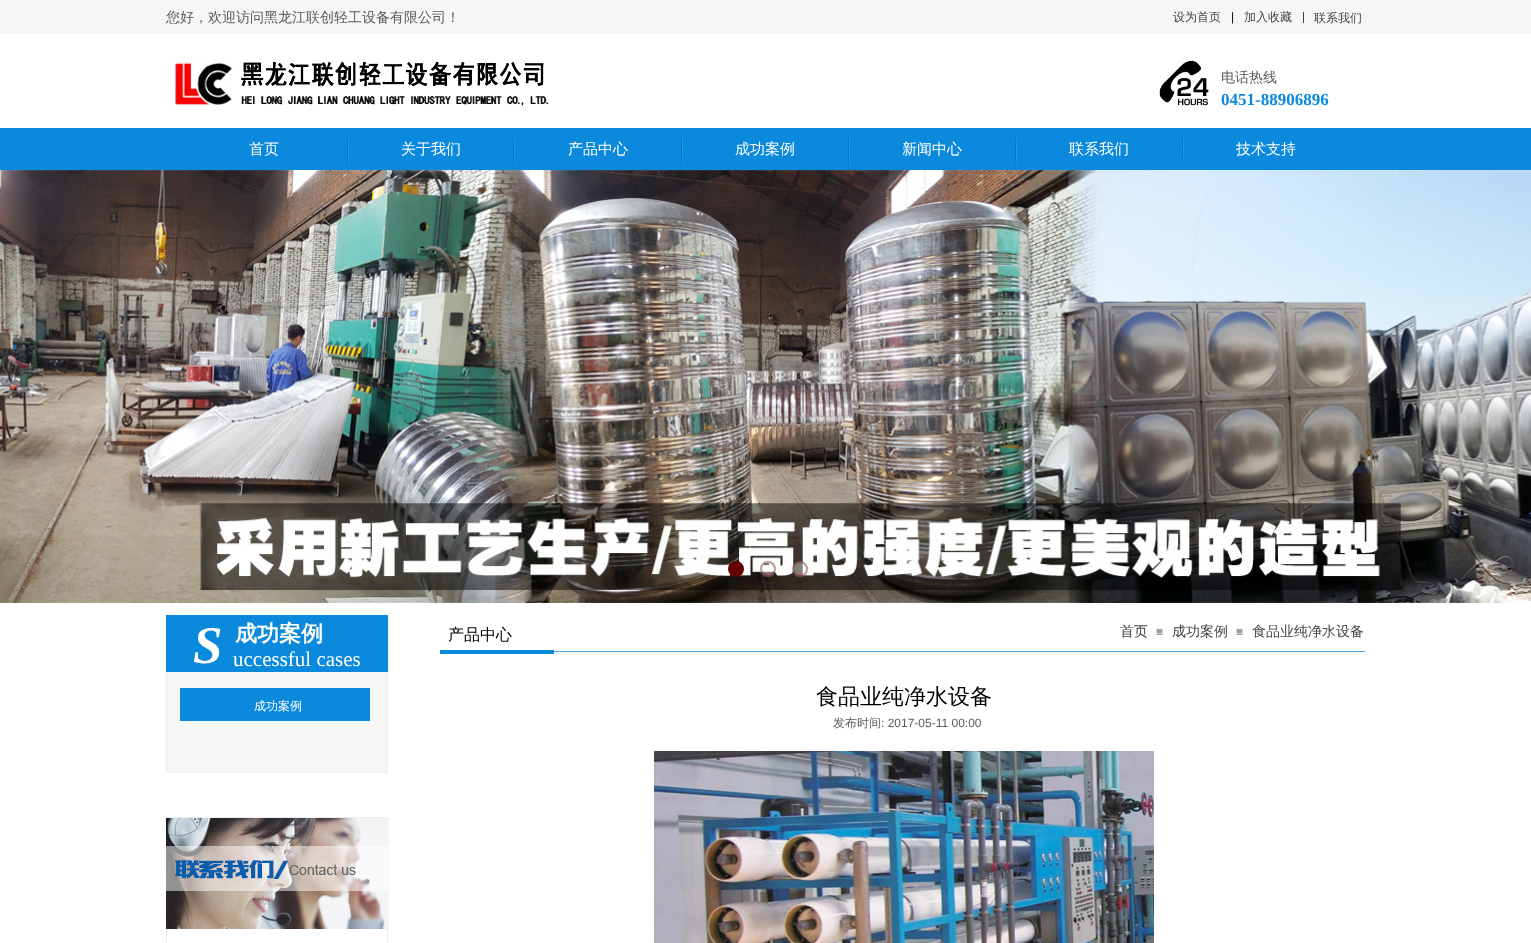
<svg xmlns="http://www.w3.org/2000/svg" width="1531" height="943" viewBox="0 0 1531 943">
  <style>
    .t1 { font: 500 14px WenQuanYi Zen Hei; fill: #5a5a5a; }
    .t2 { font: 500 12px WenQuanYi Zen Hei; fill: #434343; }
    .t3 { font: 12px Liberation Sans; fill: #000; }
    .t4 { font: bold 17px Liberation Serif; fill: #0b89dd; }
    .t5 { font: 500 15px WenQuanYi Zen Hei; fill: #fff; }
    .t6 { font: italic bold 53px Liberation Serif; fill: #fff; }
    .t7 { font: bold 22px WenQuanYi Zen Hei; fill: #fff; }
    .t8 { font: 500 16px WenQuanYi Zen Hei; fill: #000; }
    .t9 { font: 500 14px WenQuanYi Zen Hei; fill: #434343; }
    .t10 { font: 12px Liberation Sans; fill: #434343; }
    .t11 { font: 21px Liberation Serif; fill: #fff; }
    .t12 { font: 500 12px WenQuanYi Zen Hei; fill: #fff; }
    .t13 { font: 500 22px WenQuanYi Zen Hei; fill: #000; }
    .t14 { font: 500 12px WenQuanYi Zen Hei; fill: #5a5a5a; }
    .t15 { font: 12px Liberation Sans; fill: #5a5a5a; }
  </style>
  <defs>
    <clipPath id="clip1"><rect x="1314" y="10" width="52" height="20"/></clipPath>
  </defs>
  <rect width="100%" height="100%" fill="#fff"/>
  <rect x="0" y="0" width="1531" height="34" fill="#f6f6f6"/>
  <text x="166" y="22" class="t1">您好，欢迎访问黑龙江联创轻工设备有限公司！</text>
  <text x="1173" y="21" class="t2">设为首页</text>
  <text x="1231" y="21" class="t3">|</text>
  <text x="1244" y="21" class="t2">加入收藏</text>
  <rect x="1303" y="12" width="1" height="11" fill="#434343"/>
  <g clip-path="url(#clip1)">
    <text x="1314" y="22" class="t2">联系我们</text>
  </g>
  <image x="174" y="61" width="375" height="45" href="images/1.png"/>
  <image x="1159" y="60" width="50" height="46" href="images/2.png"/>
  <text x="1221" y="82" class="t1">电话热线</text>
  <text x="1221" y="105" class="t4">0451-88906896</text>
  <rect x="0" y="128" width="1531" height="42" fill="#0b89dd"/>
  <image x="347" y="132" width="2" height="37" href="images/3.png"/>
  <image x="513" y="132" width="2" height="37" href="images/3.png"/>
  <image x="1015" y="131" width="2" height="37" href="images/3.png"/>
  <image x="1182" y="130" width="2" height="37" href="images/3.png"/>
  <image x="681" y="131" width="2" height="37" href="images/3.png"/>
  <image x="848" y="132" width="2" height="37" href="images/3.png"/>
  <text x="249" y="154" class="t5">首页</text>
  <text x="401" y="154" class="t5">关于我们</text>
  <text x="568" y="154" class="t5">产品中心</text>
  <text x="735" y="154" class="t5">成功案例</text>
  <text x="902" y="154" class="t5">新闻中心</text>
  <text x="1069" y="154" class="t5">联系我们</text>
  <text x="1236" y="154" class="t5">技术支持</text>
  <image x="0" y="170" width="1531" height="433" href="images/4.png"/>
  <circle cx="736" cy="569" r="7" fill="#600" stroke="#600" stroke-width="2"/>
  <circle cx="768" cy="569" r="8" fill="#ffffff66"/>
  <circle cx="768" cy="569" r="7" fill="none" stroke="#66000066" stroke-width="2"/>
  <circle cx="800" cy="569" r="8" fill="#ffffff66"/>
  <circle cx="800" cy="569" r="7" fill="none" stroke="#66000066" stroke-width="2"/>
  <rect x="167" y="672" width="220" height="100" fill="#f6f6f6"/>
  <rect x="166.5" y="621.5" width="221" height="151" fill="none" stroke="#eee"/>
  <rect x="166" y="615" width="222" height="57" fill="#0b89dd"/>
  <text x="193" y="663" class="t6">S</text>
  <text x="235" y="641" class="t7">成功案例</text>
  <text x="448" y="640" class="t8">产品中心</text>
  <text x="1120" y="636" class="t9">首页</text>
  <text x="1156" y="636" class="t10">≡</text>
  <text x="1172" y="636" class="t9">成功案例</text>
  <text x="1236" y="636" class="t10">≡</text>
  <text x="1252" y="636" class="t9">食品业纯净水设备</text>
  <text x="233" y="666" class="t11">uccessful cases</text>
  <rect x="440" y="650" width="114" height="4" fill="#0b89dd"/>
  <rect x="554" y="651" width="811" height="1" fill="#4fa3db"/>
  <rect x="180" y="688" width="190" height="33" fill="#0b89dd"/>
  <text x="254" y="710" class="t12">成功案例</text>
  <text x="816" y="704" class="t13">食品业纯净水设备</text>
  <text x="833" y="727" class="t14">发布时间</text>
  <text x="881" y="727" class="t15">: 2017-05-11 00:00</text>
  <image x="654" y="751" width="500" height="192" href="images/5.png"/>
  <rect x="166.5" y="817.5" width="221" height="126" fill="none" stroke="#eee"/>
  <image x="166" y="818" width="223" height="111" href="images/6.png"/>
</svg>
